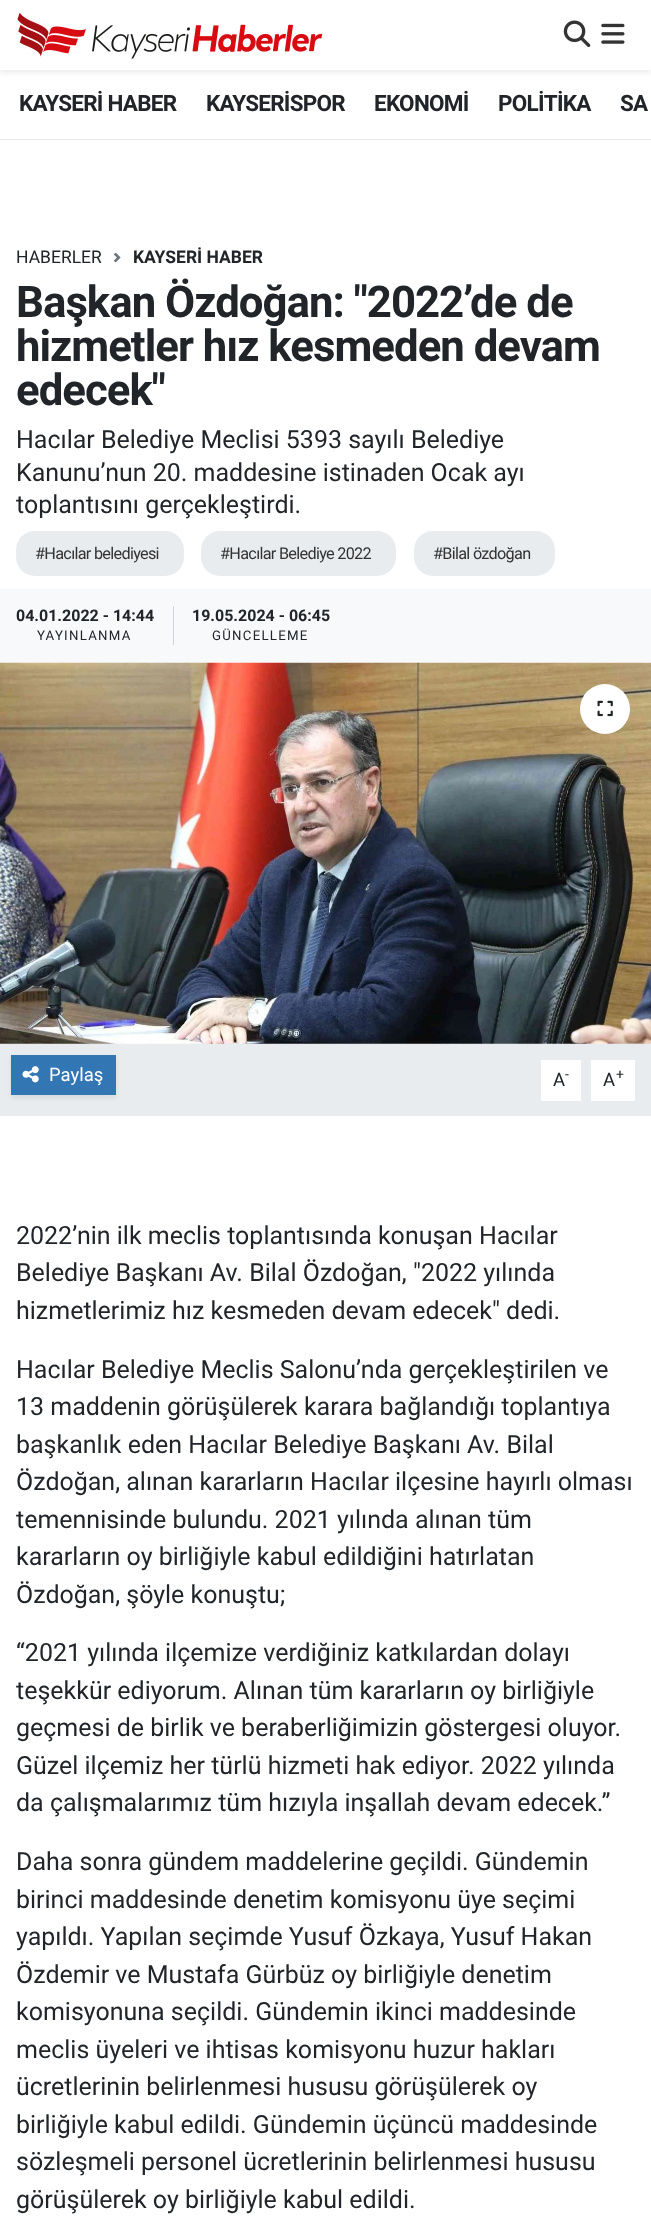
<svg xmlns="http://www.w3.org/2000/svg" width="651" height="2230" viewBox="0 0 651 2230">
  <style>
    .t1 { font: bold 22.5px Roboto; letter-spacing: -0.75px; fill: #212529; }
    .t2 { font: 17.5px Roboto; fill: #212529; }
    .t3 { font: bold 17.5px Roboto; fill: #212529; }
    .t4 { font: bold 43.75px Roboto; letter-spacing: -1px; fill: #212529; }
    .t5 { font: 25px Roboto; fill: #212529; }
    .t6 { font: 16.25px Roboto; letter-spacing: -0.7px; fill: #333; }
    .t7 { font: bold 16px Roboto; fill: #212529; }
    .t8 { font: 13.25px Roboto; letter-spacing: 1.25px; fill: #212529; }
    .t9 { font: 18.5px Roboto; fill: #fff; }
    .t10 { font: 18.5px Roboto; fill: #212529; }
    .t11 { font: 14px Roboto; fill: #212529; }
  </style>
  <rect width="100%" height="100%" fill="#e9ecef"/>
  <rect x="0" y="70" width="651" height="69" fill="#fff"/>
  <rect x="0" y="3" width="651" height="70" fill="#00000012" filter="blur(2.5px)"/>
  <rect x="0" y="0" width="651" height="70" fill="#fff"/>
  <image x="17" y="13" width="306" height="46" href="images/1.png"/>
  <image x="563" y="20" width="28" height="28" href="images/2.png"/>
  <image x="601" y="23" width="24" height="21" href="images/3.png"/>
  <rect x="0" y="139" width="651" height="1" fill="#e6e6e6"/>
  <text x="19" y="111" class="t1">KAYSERİ HABER</text>
  <text x="206" y="111" class="t1">KAYSERİSPOR</text>
  <text x="374" y="111" class="t1">EKONOMİ</text>
  <text x="498" y="111" class="t1">POLİTİKA</text>
  <text x="620" y="111" class="t1">SA</text>
  <rect x="0" y="140" width="651" height="449" fill="#fff"/>
  <text x="16" y="263" class="t2">HABERLER</text>
  <image x="113" y="253" width="8" height="10" href="images/4.png"/>
  <text x="133" y="263" class="t3">KAYSERİ HABER</text>
  <text x="16" y="317" class="t4">Başkan Özdoğan: "2022’de de</text>
  <text x="16" y="361" class="t4">hizmetler hız kesmeden devam</text>
  <text x="16" y="405" class="t4">edecek"</text>
  <text x="16" y="448" class="t5">Hacılar Belediye Meclisi 5393 sayılı Belediye</text>
  <text x="16" y="481" class="t5">Kanunu’nun 20. maddesine istinaden Ocak ayı</text>
  <text x="16" y="513" class="t5">toplantısını gerçekleştirdi.</text>
  <rect x="16" y="531" width="168" height="45" rx="19" fill="#e9ecef"/>
  <text x="35" y="559" class="t6">#Hacılar belediyesi</text>
  <rect x="201" y="531" width="195" height="45" rx="19" fill="#e9ecef"/>
  <text x="220" y="559" class="t6">#Hacılar Belediye 2022</text>
  <rect x="414" y="531" width="141" height="45" rx="19" fill="#e9ecef"/>
  <text x="433" y="559" class="t6">#Bilal özdoğan</text>
  <rect x="0" y="589" width="651" height="74" fill="#f8f9fa"/>
  <rect x="173" y="606" width="1" height="39" fill="#ced4da"/>
  <text x="16" y="621" class="t7">04.01.2022 - 14:44</text>
  <text x="37" y="640" class="t8">YAYINLANMA</text>
  <text x="192" y="621" class="t7">19.05.2024 - 06:45</text>
  <text x="212" y="640" class="t8">GÜNCELLEME</text>
  <image x="0" y="662" width="651" height="382" href="images/5.png"/>
  <circle cx="605" cy="709" r="25" fill="#fff"/>
  <image x="597" y="700" width="16" height="17" href="images/6.png"/>
  <rect x="11" y="1058" width="105" height="40" fill="#00000012" filter="blur(2.5px)"/>
  <rect x="11" y="1055" width="105" height="40" fill="#3276b3"/>
  <image x="22" y="1066" width="17" height="17" href="images/7.png"/>
  <text x="49" y="1081" class="t9">Paylaş</text>
  <rect x="541" y="1060" width="40" height="41" fill="#fff"/>
  <text x="553" y="1086" class="t10">A</text>
  <text x="565" y="1079" class="t11">-</text>
  <rect x="591" y="1060" width="44" height="41" fill="#fff"/>
  <text x="603" y="1086" class="t10">A</text>
  <text x="616" y="1079" class="t11">+</text>
  <rect x="0" y="1116" width="651" height="1114" fill="#fff"/>
  <text x="16" y="1244" class="t5">2022’nin ilk meclis toplantısında konuşan Hacılar</text>
  <text x="16" y="1281" class="t5">Belediye Başkanı Av. Bilal Özdoğan, "2022 yılında</text>
  <text x="16" y="1319" class="t5">hizmetlerimiz hız kesmeden devam edecek" dedi.</text>
  <text x="16" y="1378" class="t5">Hacılar Belediye Meclis Salonu’nda gerçekleştirilen ve</text>
  <text x="16" y="1415" class="t5">13 maddenin görüşülerek karara bağlandığı toplantıya</text>
  <text x="16" y="1453" class="t5">başkanlık eden Hacılar Belediye Başkanı Av. Bilal</text>
  <text x="16" y="1490" class="t5">Özdoğan, alınan kararların Hacılar ilçesine hayırlı olması</text>
  <text x="16" y="1528" class="t5">temennisinde bulundu. 2021 yılında alınan tüm</text>
  <text x="16" y="1565" class="t5">kararların oy birliğiyle kabul edildiğini hatırlatan</text>
  <text x="16" y="1603" class="t5">Özdoğan, şöyle konuştu;</text>
  <text x="16" y="1661" class="t5">“2021 yılında ilçemize verdiğiniz katkılardan dolayı</text>
  <text x="16" y="1699" class="t5">teşekkür ediyorum. Alınan tüm kararların oy birliğiyle</text>
  <text x="16" y="1736" class="t5">geçmesi de birlik ve beraberliğimizin göstergesi oluyor.</text>
  <text x="16" y="1774" class="t5">Güzel ilçemiz her türlü hizmeti hak ediyor. 2022 yılında</text>
  <text x="16" y="1811" class="t5">da çalışmalarımız tüm hızıyla inşallah devam edecek.”</text>
  <text x="16" y="1870" class="t5">Daha sonra gündem maddelerine geçildi. Gündemin</text>
  <text x="16" y="1908" class="t5">birinci maddesinde denetim komisyonu üye seçimi</text>
  <text x="16" y="1945" class="t5">yapıldı. Yapılan seçimde Yusuf Özkaya, Yusuf Hakan</text>
  <text x="16" y="1983" class="t5">Özdemir ve Mustafa Gürbüz oy birliğiyle denetim</text>
  <text x="16" y="2020" class="t5">komisyonuna seçildi. Gündemin ikinci maddesinde</text>
  <text x="16" y="2058" class="t5">meclis üyeleri ve ihtisas komisyonu huzur hakları</text>
  <text x="16" y="2095" class="t5">ücretlerinin belirlenmesi hususu görüşülerek oy</text>
  <text x="16" y="2133" class="t5">birliğiyle kabul edildi. Gündemin üçüncü maddesinde</text>
  <text x="16" y="2170" class="t5">sözleşmeli personel ücretlerinin belirlenmesi hususu</text>
  <text x="16" y="2208" class="t5">görüşülerek oy birliğiyle kabul edildi.</text>
</svg>
